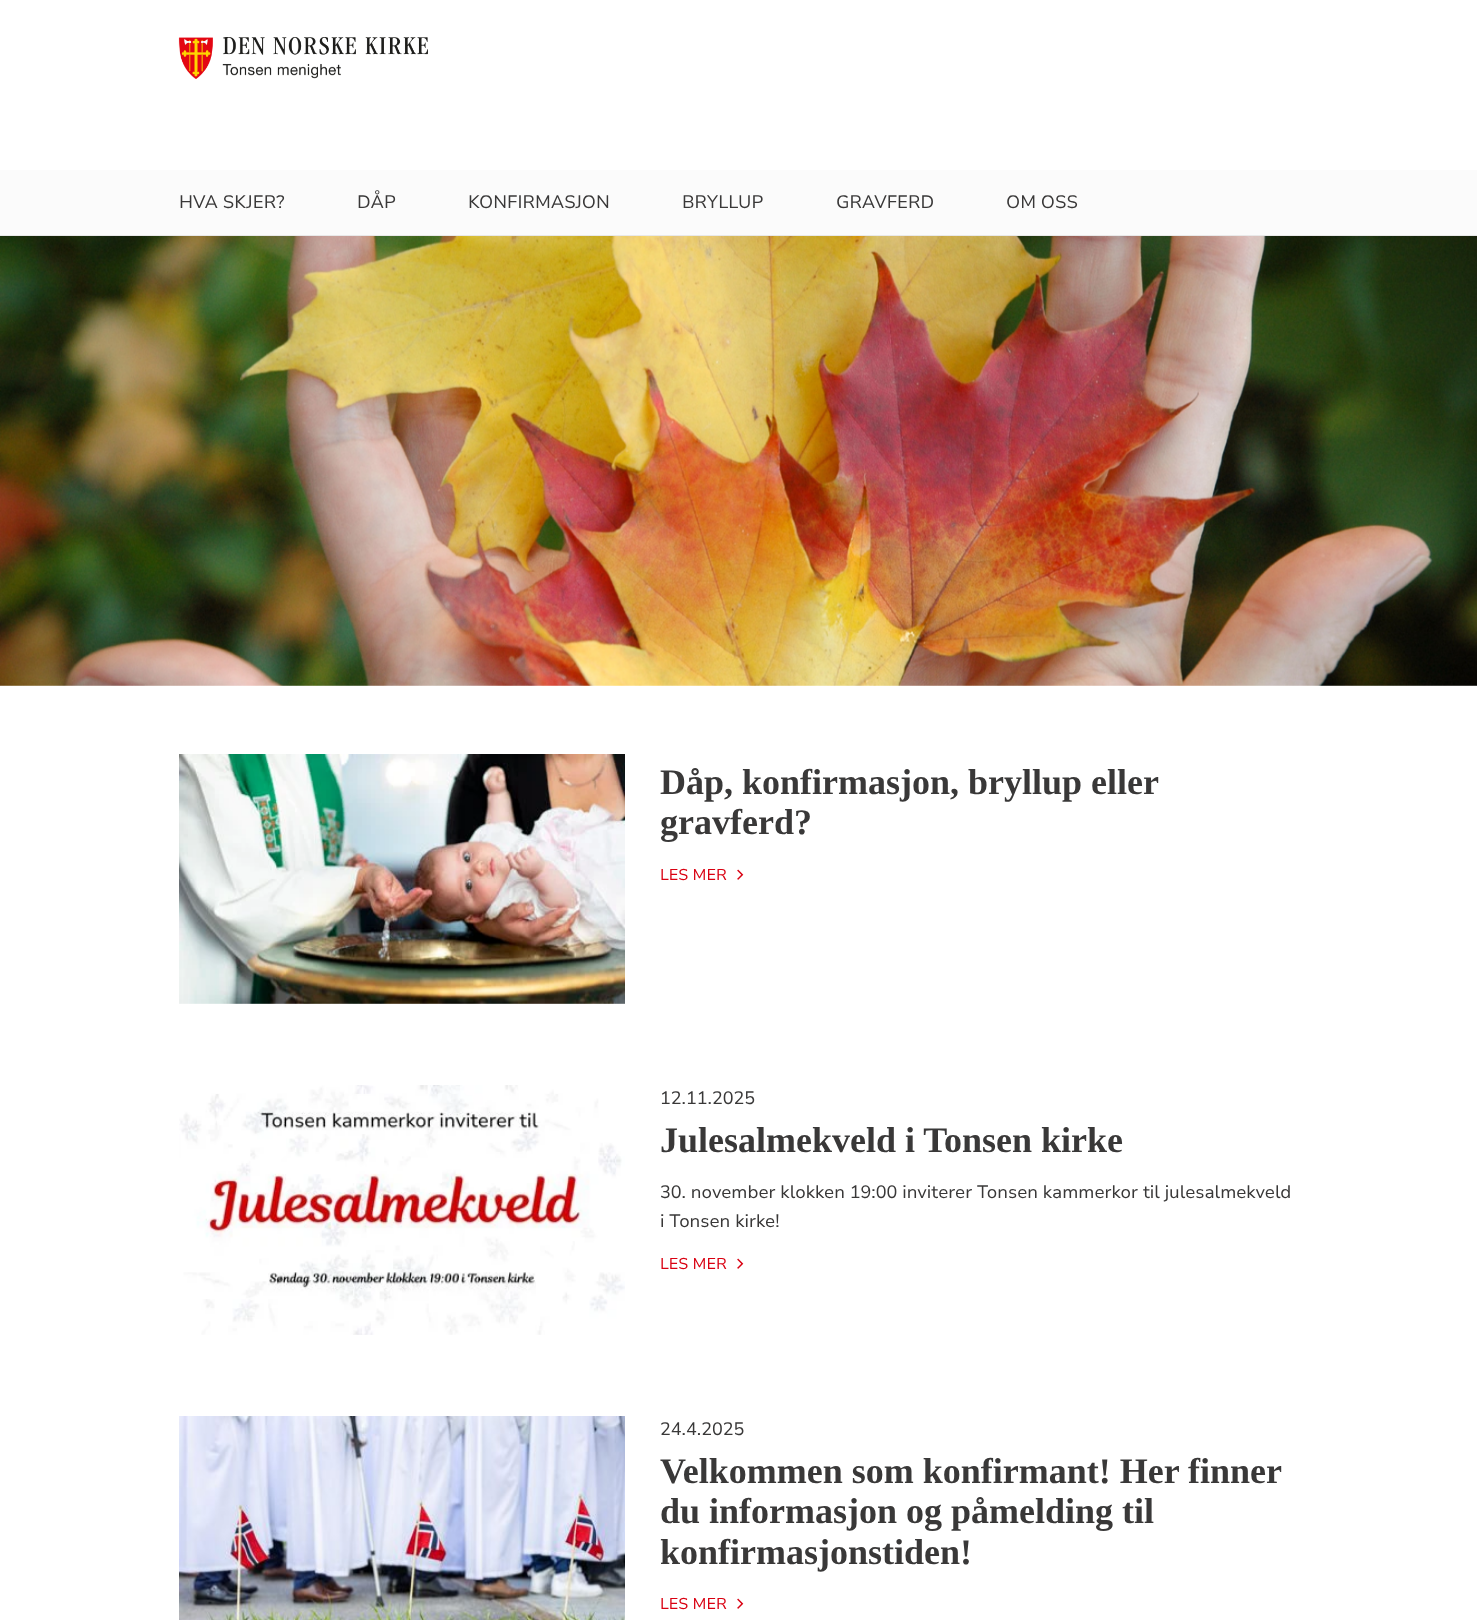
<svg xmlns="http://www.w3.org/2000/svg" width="1477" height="1620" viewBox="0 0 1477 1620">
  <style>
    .t1 { font: 18px Nunito Sans; fill: #393838; }
    .t2 { font: bold 36px Liberation Serif; fill: #393838; }
    .t3 { font: 15.75px Nunito Sans; fill: #d90011; }
  </style>
  <rect width="100%" height="100%" fill="#fff"/>
  <image x="178" y="37" width="250" height="42" href="images/1.png"/>
  <rect x="0" y="170" width="1477" height="65" fill="#fbfbfb"/>
  <rect x="0" y="235" width="1477" height="1" fill="#e9e9e9"/>
  <text x="179" y="208" class="t1">HVA SKJER?</text>
  <text x="357" y="208" class="t1">DÅP</text>
  <text x="468" y="208" class="t1">KONFIRMASJON</text>
  <text x="682" y="208" class="t1">BRYLLUP</text>
  <text x="836" y="208" class="t1">GRAVFERD</text>
  <text x="1006" y="208" class="t1">OM OSS</text>
  <image x="0" y="236" width="1477" height="450" href="images/2.png"/>
  <image x="179" y="754" width="446" height="250" href="images/3.png"/>
  <text x="660" y="794" class="t2">Dåp, konfirmasjon, bryllup eller</text>
  <text x="660" y="834" class="t2">gravferd?</text>
  <text x="660" y="880" class="t3">LES MER</text>
  <image x="737" y="869" width="7" height="11" href="images/4.png"/>
  <image x="179" y="1085" width="446" height="250" href="images/5.png"/>
  <text x="660" y="1104" class="t1">12.11.2025</text>
  <text x="660" y="1152" class="t2">Julesalmekveld i Tonsen kirke</text>
  <text x="660" y="1198" class="t1">30. november klokken 19:00 inviterer Tonsen kammerkor til julesalmekveld</text>
  <text x="660" y="1227" class="t1">i Tonsen kirke!</text>
  <text x="660" y="1269" class="t3">LES MER</text>
  <image x="737" y="1258" width="7" height="11" href="images/4.png"/>
  <image x="179" y="1416" width="446" height="204" href="images/6.png"/>
  <text x="660" y="1435" class="t1">24.4.2025</text>
  <text x="660" y="1483" class="t2">Velkommen som konfirmant! Her finner</text>
  <text x="660" y="1523" class="t2">du informasjon og påmelding til</text>
  <text x="660" y="1564" class="t2">konfirmasjonstiden!</text>
  <text x="660" y="1609" class="t3">LES MER</text>
  <image x="737" y="1598" width="7" height="11" href="images/4.png"/>
</svg>
